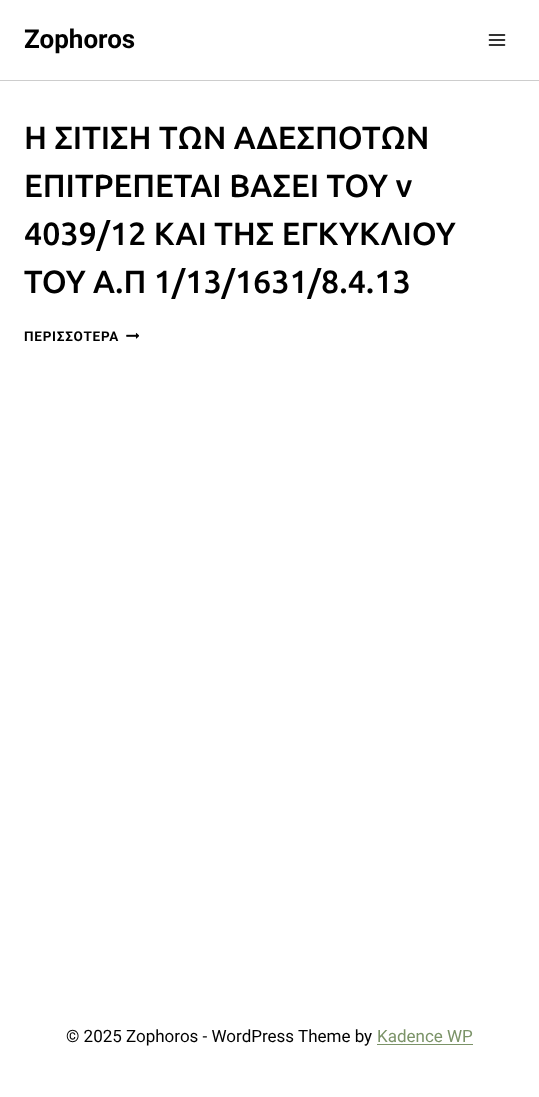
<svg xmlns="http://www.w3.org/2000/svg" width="539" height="1097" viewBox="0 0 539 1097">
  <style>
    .t1 { font: bold 26px Roboto; fill: #000; }
    .t2 { font: 500 32px Ubuntu; fill: #000; }
    .t3 { font: bold 13.5px Roboto; letter-spacing: 0.75px; fill: #000; }
    .t4 { font: 17px Roboto; fill: #000; }
    .t5 { font: 17px Roboto; fill: #7b9368; }
  </style>
  <rect width="100%" height="100%" fill="#fff"/>
  <rect x="0" y="80" width="539" height="1" fill="#cdcdcd"/>
  <text x="24" y="48" class="t1">Zophoros</text>
  <image x="488" y="34" width="18" height="12" href="images/1.png"/>
  <text x="24" y="149" class="t2">Η ΣΙΤΙΣΗ ΤΩΝ ΑΔΕΣΠΟΤΩΝ</text>
  <text x="24" y="197" class="t2">ΕΠΙΤΡΕΠΕΤΑΙ ΒΑΣΕΙ ΤΟΥ ν</text>
  <text x="24" y="245" class="t2">4039/12 ΚΑΙ ΤΗΣ ΕΓΚΥΚΛΙΟΥ</text>
  <text x="24" y="293" class="t2">ΤΟΥ Α.Π 1/13/1631/8.4.13</text>
  <text x="24" y="341" class="t3">ΠΕΡΙΣΣΟΤΕΡΑ</text>
  <image x="126" y="332" width="13" height="7" href="images/2.png"/>
  <text x="66" y="1042" class="t4">© 2025 Zophoros - WordPress Theme by</text>
  <text x="377" y="1042" class="t5">Kadence WP</text>
  <rect x="377" y="1044" width="96" height="1" fill="#7b9368"/>
</svg>
